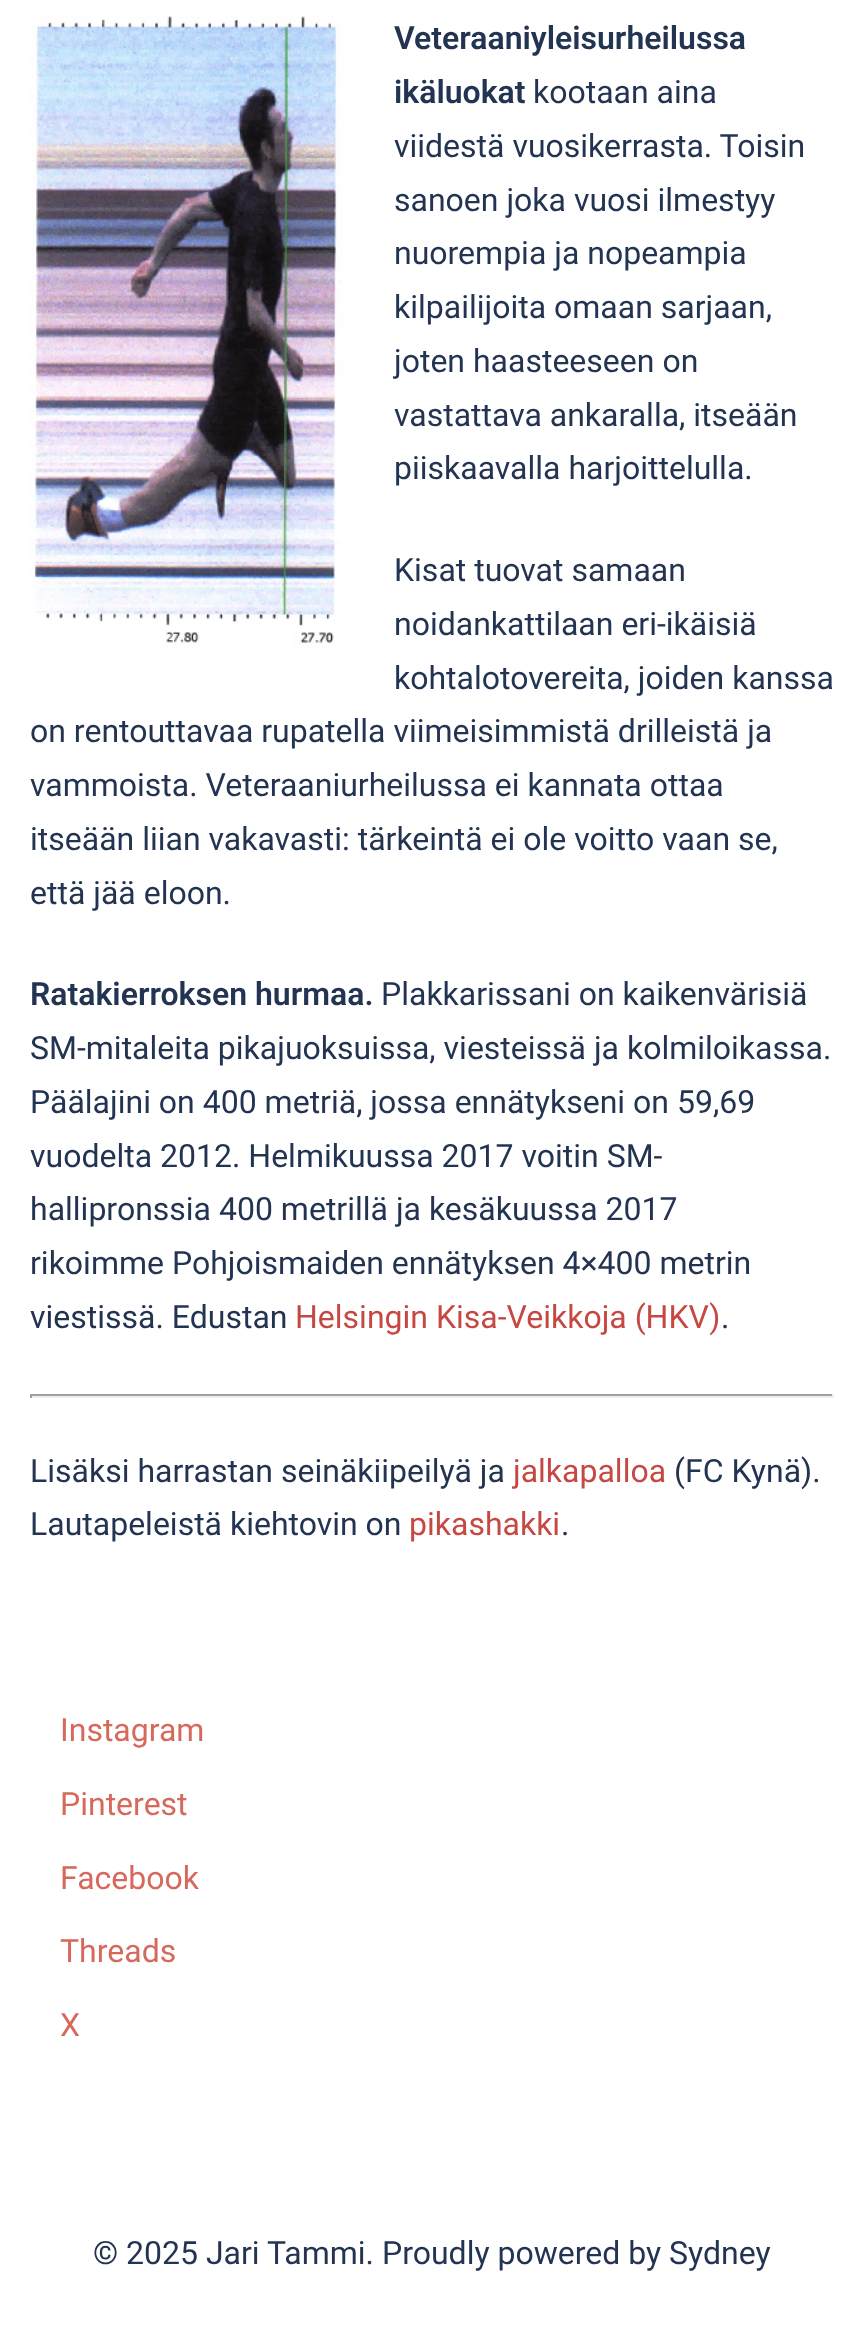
<svg xmlns="http://www.w3.org/2000/svg" width="864" height="2325" viewBox="0 0 864 2325">
  <style>
    .t1 { font: 600 32px Roboto; fill: #233452; }
    .t2 { font: 32px Roboto; fill: #233452; }
    .t3 { font: 32px Roboto; fill: #c64843; }
    .t4 { font: 32px Roboto; fill: #d6685c; }
  </style>
  <rect width="100%" height="100%" fill="#fff"/>
  <image x="30" y="15" width="313" height="635" href="images/1.png"/>
  <text x="394" y="49" class="t1">Veteraaniyleisurheilussa</text>
  <text x="394" y="103" class="t1">ikäluokat</text>
  <text x="533" y="103" class="t2">kootaan aina</text>
  <text x="394" y="157" class="t2">viidestä vuosikerrasta. Toisin</text>
  <text x="394" y="211" class="t2">sanoen joka vuosi ilmestyy</text>
  <text x="394" y="264" class="t2">nuorempia ja nopeampia</text>
  <text x="394" y="318" class="t2">kilpailijoita omaan sarjaan,</text>
  <text x="394" y="372" class="t2">joten haasteeseen on</text>
  <text x="394" y="426" class="t2">vastattava ankaralla, itseään</text>
  <text x="394" y="479" class="t2">piiskaavalla harjoittelulla.</text>
  <text x="394" y="581" class="t2">Kisat tuovat samaan</text>
  <text x="394" y="635" class="t2">noidankattilaan eri-ikäisiä</text>
  <text x="394" y="689" class="t2">kohtalotovereita, joiden kanssa</text>
  <text x="30" y="742" class="t2">on rentouttavaa rupatella viimeisimmistä drilleistä ja</text>
  <text x="30" y="796" class="t2">vammoista. Veteraaniurheilussa ei kannata ottaa</text>
  <text x="30" y="850" class="t2">itseään liian vakavasti: tärkeintä ei ole voitto vaan se,</text>
  <text x="30" y="904" class="t2">että jää eloon.</text>
  <text x="30" y="1005" class="t1">Ratakierroksen hurmaa.</text>
  <text x="381" y="1005" class="t2">Plakkarissani on kaikenvärisiä</text>
  <text x="30" y="1059" class="t2">SM-mitaleita pikajuoksuissa, viesteissä ja kolmiloikassa.</text>
  <text x="30" y="1113" class="t2">Päälajini on 400 metriä, jossa ennätykseni on 59,69</text>
  <text x="30" y="1167" class="t2">vuodelta 2012. Helmikuussa 2017 voitin SM-</text>
  <text x="30" y="1220" class="t2">hallipronssia 400 metrillä ja kesäkuussa 2017</text>
  <text x="30" y="1274" class="t2">rikoimme Pohjoismaiden ennätyksen 4×400 metrin</text>
  <text x="30" y="1328" class="t2">viestissä. Edustan</text>
  <text x="295" y="1328" class="t3">Helsingin Kisa-Veikkoja (HKV)</text>
  <text x="721" y="1328" class="t2">.</text>
  <rect x="30" y="1394" width="804" height="2" fill="#9f9f9f"/>
  <rect x="832" y="1394" width="2" height="4" fill="#eee"/>
  <rect x="30" y="1396" width="804" height="2" fill="#eee"/>
  <rect x="30" y="1394" width="2" height="4" fill="#9f9f9f"/>
  <text x="30" y="1482" class="t2">Lisäksi harrastan seinäkiipeilyä ja</text>
  <text x="513" y="1482" class="t3">jalkapalloa</text>
  <text x="674" y="1482" class="t2">(FC Kynä).</text>
  <text x="30" y="1535" class="t2">Lautapeleistä kiehtovin on</text>
  <text x="409" y="1535" class="t3">pikashakki</text>
  <text x="561" y="1535" class="t2">.</text>
  <text x="60" y="1741" class="t4">Instagram</text>
  <text x="60" y="1815" class="t4">Pinterest</text>
  <text x="60" y="1889" class="t4">Facebook</text>
  <text x="60" y="1962" class="t4">Threads</text>
  <text x="60" y="2036" class="t4">X</text>
  <text x="93" y="2264" class="t2">© 2025 Jari Tammi. Proudly powered by Sydney</text>
</svg>
